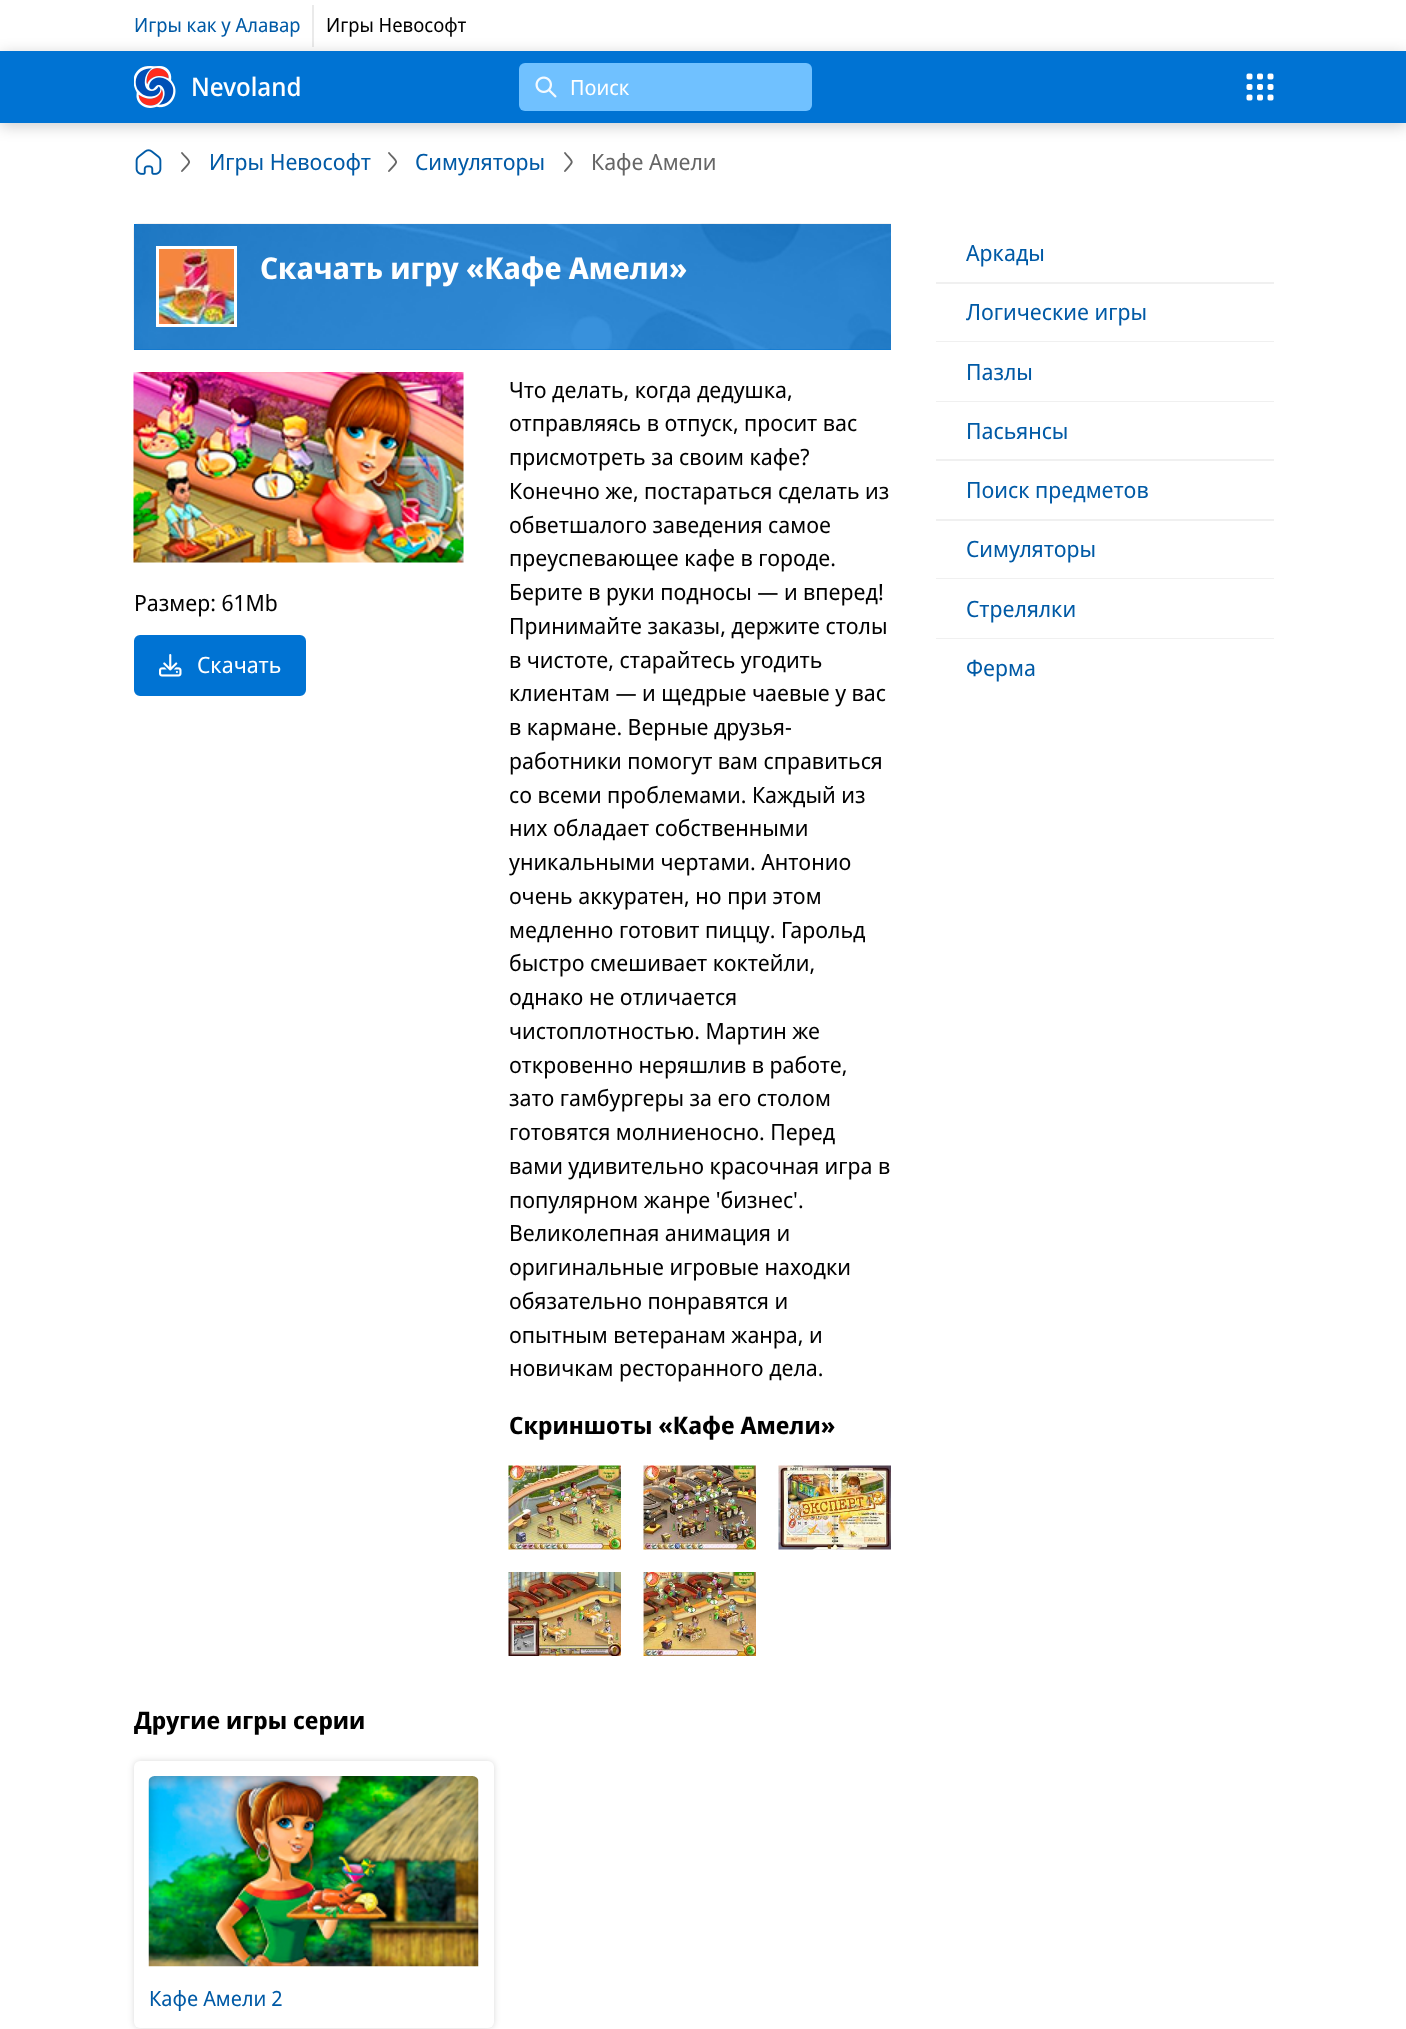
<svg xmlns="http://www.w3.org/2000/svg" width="1406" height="2029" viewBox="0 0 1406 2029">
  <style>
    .t1 { font: 19.5px Noto Sans Display; fill: #005aa6; }
    .t2 { font: 19.5px Noto Sans Display; fill: #000; }
    .t3 { font: 500 25.5px Noto Sans Display; fill: #fff; }
    .t4 { font: 21px Noto Sans Display; fill: #fff; }
    .t5 { font: 22.5px Noto Sans Display; fill: #005aa6; }
    .t6 { font: 22.5px Noto Sans Display; fill: #666; }
    .t7 { font: bold 30px Noto Sans Display; fill: #fff; }
    .t8 { font: 22.5px Noto Sans Display; fill: #000; }
    .t9 { font: 22.5px Noto Sans Display; fill: #fff; }
    .t10 { font: bold 24px Noto Sans Display; fill: #000; }
    .t11 { font: 21px Noto Sans Display; fill: #005aa6; }
  </style>
  <rect width="100%" height="100%" fill="#fff"/>
  <text x="134" y="32" class="t1">Игры как у Алавар</text>
  <rect x="312" y="5" width="2" height="42" fill="#eaeaea"/>
  <text x="326" y="32" class="t2">Игры Невософт</text>
  <image x="135" y="149" width="27" height="26" href="images/4.png"/>
  <rect x="0" y="54" width="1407" height="72" fill="#00000033" filter="blur(7.5px)"/>
  <rect x="0" y="51" width="1406" height="72" fill="#0073d3"/>
  <image x="134" y="66" width="42" height="42" href="images/1.png"/>
  <text x="191" y="96" class="t3">Nevoland</text>
  <rect x="519" y="63" width="293" height="48" rx="6" fill="#70c1ff"/>
  <image x="535" y="76" width="22" height="22" href="images/2.png"/>
  <text x="570" y="95" class="t4">Поиск</text>
  <image x="1246" y="73" width="28" height="28" href="images/3.png"/>
  <path d="M182 171C191.5 160 191.5 164 182 153" fill="none" stroke="#666" stroke-width="1.9" stroke-linecap="round"/>
  <text x="209" y="170" class="t5">Игры Невософт</text>
  <path d="M389 171C398.5 160 398.5 164 389 153" fill="none" stroke="#666" stroke-width="1.9" stroke-linecap="round"/>
  <text x="415" y="170" class="t5">Симуляторы</text>
  <path d="M565 171C574 160 574 164 565 153" fill="none" stroke="#666" stroke-width="1.9" stroke-linecap="round"/>
  <text x="591" y="170" class="t6">Кафе Амели</text>
  <rect x="134" y="224" width="757" height="126" fill="#0073d3"/>
  <image x="133" y="223" width="758" height="127" href="images/5.png"/>
  <rect x="157.5" y="247.5" width="78" height="78" fill="none" stroke="#fff" stroke-width="3"/>
  <image x="159" y="249" width="75" height="75" href="images/6.png"/>
  <text x="260" y="279" class="t7">Скачать игру «Кафе Амели»</text>
  <image x="133" y="372" width="331" height="191" href="images/7.png"/>
  <text x="134" y="611" class="t8">Размер: 61Mb</text>
  <rect x="135" y="636" width="170" height="59" rx="5" fill="#0073d3" stroke="#0073d3" stroke-width="2"/>
  <image x="159" y="654" width="23" height="23" href="images/8.png"/>
  <text x="197" y="673" class="t9">Скачать</text>
  <text x="509" y="398" class="t8">Что делать, когда дедушка,</text>
  <text x="509" y="431" class="t8">отправляясь в отпуск, просит вас</text>
  <text x="509" y="465" class="t8">присмотреть за своим кафе?</text>
  <text x="509" y="499" class="t8">Конечно же, постараться сделать из</text>
  <text x="509" y="533" class="t8">обветшалого заведения самое</text>
  <text x="509" y="566" class="t8">преуспевающее кафе в городе.</text>
  <text x="509" y="600" class="t8">Берите в руки подносы — и вперед!</text>
  <text x="509" y="634" class="t8">Принимайте заказы, держите столы</text>
  <text x="509" y="668" class="t8">в чистоте, старайтесь угодить</text>
  <text x="509" y="701" class="t8">клиентам — и щедрые чаевые у вас</text>
  <text x="509" y="735" class="t8">в кармане. Верные друзья-</text>
  <text x="509" y="769" class="t8">работники помогут вам справиться</text>
  <text x="509" y="803" class="t8">со всеми проблемами. Каждый из</text>
  <text x="509" y="836" class="t8">них обладает собственными</text>
  <text x="509" y="870" class="t8">уникальными чертами. Антонио</text>
  <text x="509" y="904" class="t8">очень аккуратен, но при этом</text>
  <text x="509" y="938" class="t8">медленно готовит пиццу. Гарольд</text>
  <text x="509" y="971" class="t8">быстро смешивает коктейли,</text>
  <text x="509" y="1005" class="t8">однако не отличается</text>
  <text x="509" y="1039" class="t8">чистоплотностью. Мартин же</text>
  <text x="509" y="1073" class="t8">откровенно неряшлив в работе,</text>
  <text x="509" y="1106" class="t8">зато гамбургеры за его столом</text>
  <text x="509" y="1140" class="t8">готовятся молниеносно. Перед</text>
  <text x="509" y="1174" class="t8">вами удивительно красочная игра в</text>
  <text x="509" y="1208" class="t8">популярном жанре 'бизнес'.</text>
  <text x="509" y="1241" class="t8">Великолепная анимация и</text>
  <text x="509" y="1275" class="t8">оригинальные игровые находки</text>
  <text x="509" y="1309" class="t8">обязательно понравятся и</text>
  <text x="509" y="1343" class="t8">опытным ветеранам жанра, и</text>
  <text x="509" y="1376" class="t8">новичкам ресторанного дела.</text>
  <text x="509" y="1434" class="t10">Скриншоты «Кафе Амели»</text>
  <image x="508" y="1465" width="113" height="85" href="images/9.png"/>
  <image x="643" y="1465" width="113" height="85" href="images/10.png"/>
  <image x="778" y="1465" width="113" height="85" href="images/11.png"/>
  <image x="508" y="1572" width="113" height="84" href="images/12.png"/>
  <image x="643" y="1572" width="113" height="84" href="images/13.png"/>
  <text x="134" y="1729" class="t10">Другие игры серии</text>
  <rect x="134" y="1761" width="360" height="267" rx="6" fill="#00000026" filter="blur(3px)"/>
  <rect x="134" y="1761" width="360" height="267" rx="6" fill="#fff"/>
  <image x="148" y="1776" width="331" height="191" href="images/14.png"/>
  <text x="149" y="2006" class="t11">Кафе Амели 2</text>
  <text x="966" y="261" class="t5">Аркады</text>
  <rect x="936" y="282" width="338" height="2" fill="#f0f0f0"/>
  <text x="966" y="320" class="t5">Логические игры</text>
  <rect x="936" y="341" width="338" height="1" fill="#f0f0f0"/>
  <text x="966" y="380" class="t5">Пазлы</text>
  <rect x="936" y="401" width="338" height="1" fill="#f0f0f0"/>
  <text x="966" y="439" class="t5">Пасьянсы</text>
  <rect x="936" y="459" width="338" height="2" fill="#f0f0f0"/>
  <text x="966" y="498" class="t5">Поиск предметов</text>
  <rect x="936" y="519" width="338" height="2" fill="#f0f0f0"/>
  <text x="966" y="557" class="t5">Симуляторы</text>
  <rect x="936" y="578" width="338" height="1" fill="#f0f0f0"/>
  <text x="966" y="617" class="t5">Стрелялки</text>
  <rect x="936" y="638" width="338" height="1" fill="#f0f0f0"/>
  <text x="966" y="676" class="t5">Ферма</text>
</svg>
